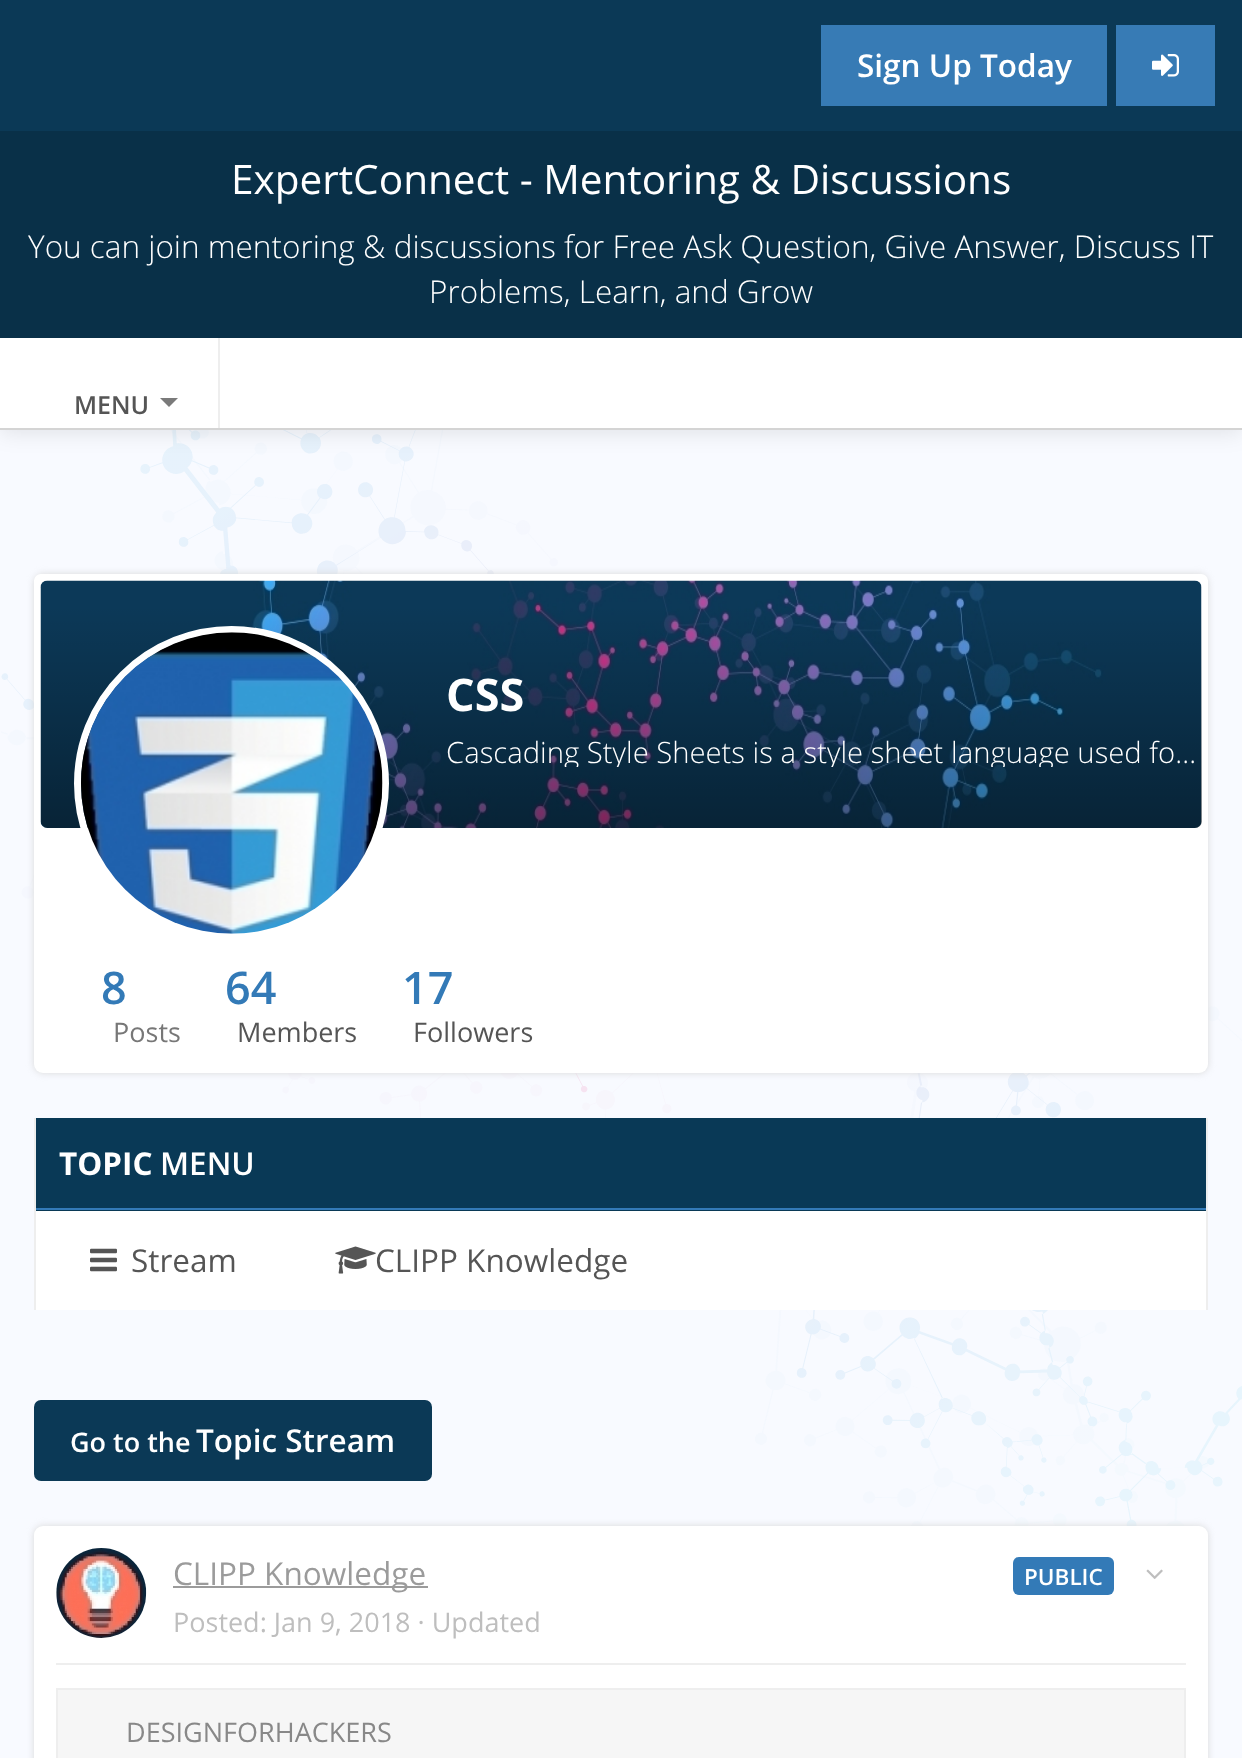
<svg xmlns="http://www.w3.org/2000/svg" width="1242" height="1758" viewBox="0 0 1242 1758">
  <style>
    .t1 { font: 600 31.5px Open Sans; fill: #fff; }
    .t2 { font: 40.5px Open Sans; fill: #fff; }
    .t3 { font: 300 31.5px Open Sans; fill: #fff; }
    .t4 { font: 600 25px Open Sans; fill: #555; }
    .t5 { font: bold 45px Open Sans; fill: #fff; }
    .t6 { font: 300 29.25px Open Sans; fill: #fff; }
    .t7 { font: 600 45px Open Sans; fill: #337ab7; }
    .t8 { font: 27px Open Sans; fill: #777; }
    .t9 { font: 27px Open Sans; fill: #555; }
    .t10 { font: bold 31.5px Open Sans; fill: #fff; }
    .t11 { font: 31.5px Open Sans; fill: #555; }
    .t12 { font: 600 27px Open Sans; fill: #fff; }
    .t13 { font: 31.5px Open Sans; fill: #9b9b9b; }
    .t14 { font: 600 22.5px Open Sans; fill: #fff; }
    .t15 { font: 27px Open Sans; fill: #bebebe; }
    .t16 { font: 27px Open Sans; fill: #888; }
  </style>
  <defs>
    <linearGradient id="g1" gradientUnits="userSpaceOnUse" x1="621" y1="603" x2="621" y2="828"><stop offset="0" stop-color="#000" stop-opacity="0"/><stop offset="0.01" stop-color="#000" stop-opacity="0"/><stop offset="1" stop-color="#000" stop-opacity="0.38"/></linearGradient>
    <clipPath id="clip1"><rect x="446" y="736" width="756" height="31"/></clipPath>
  </defs>
  <rect width="100%" height="100%" fill="#f8faff"/>
  <image x="1" y="430" width="1241" height="1096" href="images/2.png"/>
  <rect x="0" y="115" width="1242" height="317" fill="#0000001a" filter="blur(11px)"/>
  <rect x="0" y="0" width="1242" height="131" fill="#0b3956"/>
  <rect x="821" y="25" width="286" height="81" fill="#377bb5"/>
  <text x="857" y="77" class="t1">Sign Up Today</text>
  <rect x="1116" y="25" width="99" height="81" fill="#377bb5"/>
  <image x="1152" y="54" width="27" height="23" href="images/1.png"/>
  <rect x="0" y="338" width="1242" height="90" fill="#fff"/>
  <rect x="0" y="428" width="1242" height="2" fill="#d4d4d4"/>
  <rect x="0" y="131" width="1242" height="207" fill="#093048"/>
  <text x="231" y="194" class="t2">ExpertConnect - Mentoring &amp; Discussions</text>
  <text x="28" y="258" class="t3">You can join mentoring &amp; discussions for Free Ask Question, Give Answer, Discuss IT</text>
  <text x="429" y="303" class="t3">Problems, Learn, and Grow</text>
  <rect x="218" y="338" width="2" height="90" fill="#eee"/>
  <text x="74" y="414" class="t4">MENU</text>
  <path d="M160 398H178L169 407Z" fill="#7a7a7a"/>
  <rect x="34" y="574" width="1174" height="499" rx="9" fill="#dadada" filter="blur(3.5px)"/>
  <rect x="34" y="574" width="1174" height="499" rx="9" fill="#fff"/>
  <path d="M41 577.5H1201C1203 577.5 1204.5 579 1204.5 581V831.5H37.5V581C37.5 579 39 577.5 41 577.5Z" fill="none" stroke="#fff" stroke-width="7"/>
  <image x="40" y="580" width="1162" height="248" href="images/4.png"/>
  <path d="M41 603H1202V821C1202 825 1199 828 1195 828H48C44 828 41 825 41 821Z" fill="url(#g1)"/>
  <circle cx="231.5" cy="783.5" r="154" fill="none" stroke="#fff" stroke-width="7"/>
  <image x="81" y="632" width="302" height="302" href="images/3.png"/>
  <text x="446" y="711" class="t5">CSS</text>
  <g clip-path="url(#clip1)">
    <text x="446" y="763" class="t6">Cascading Style Sheets is a style sheet language used fo…</text>
  </g>
  <text x="101" y="1004" class="t7">8</text>
  <text x="113" y="1042" class="t8">Posts</text>
  <text x="225" y="1004" class="t7">64</text>
  <text x="237" y="1042" class="t9">Members</text>
  <text x="402" y="1004" class="t7">17</text>
  <text x="413" y="1042" class="t9">Followers</text>
  <rect x="36" y="1211" width="1170" height="99" fill="#fff"/>
  <rect x="1206" y="1118" width="2" height="192" fill="#eee"/>
  <rect x="34" y="1118" width="2" height="192" fill="#eee"/>
  <rect x="36" y="1118" width="1170" height="93" fill="#093956"/>
  <rect x="36" y="1208" width="1170" height="2" fill="#337ab7"/>
  <text x="59" y="1175" class="t10">TOPIC</text>
  <text x="160" y="1175" class="t1">MENU</text>
  <image x="90" y="1248" width="27" height="24" href="images/5.png"/>
  <text x="131" y="1272" class="t11">Stream</text>
  <image x="335" y="1246" width="41" height="28" href="images/6.png"/>
  <text x="375" y="1272" class="t11">CLIPP Knowledge</text>
  <rect x="34" y="1400" width="398" height="81" rx="7" fill="#0b3956"/>
  <text x="70" y="1452" class="t12">Go to the</text>
  <text x="196" y="1452" class="t1">Topic Stream</text>
  <rect x="34" y="1526" width="1174" height="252" rx="9" fill="#dadada" filter="blur(3.5px)"/>
  <rect x="34" y="1526" width="1174" height="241" rx="9" fill="#fff"/>
  <image x="56" y="1548" width="91" height="90" href="images/7.png"/>
  <rect x="173" y="1586" width="255" height="2" fill="#9b9b9b"/>
  <text x="173" y="1585" class="t13">CLIPP Knowledge</text>
  <rect x="1013" y="1557" width="101" height="38" rx="6" fill="#337ab7"/>
  <text x="1024" y="1585" class="t14">PUBLIC</text>
  <text x="173" y="1632" class="t15">Posted: Jan 9, 2018 · Updated</text>
  <image x="1146" y="1569" width="17" height="10" href="images/8.png"/>
  <rect x="56" y="1663" width="1130" height="2" fill="#eee"/>
  <rect x="57" y="1689" width="1128" height="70" fill="#f6f6f6" stroke="#eee" stroke-width="2"/>
  <text x="126" y="1742" class="t16">DESIGNFORHACKERS</text>
</svg>
